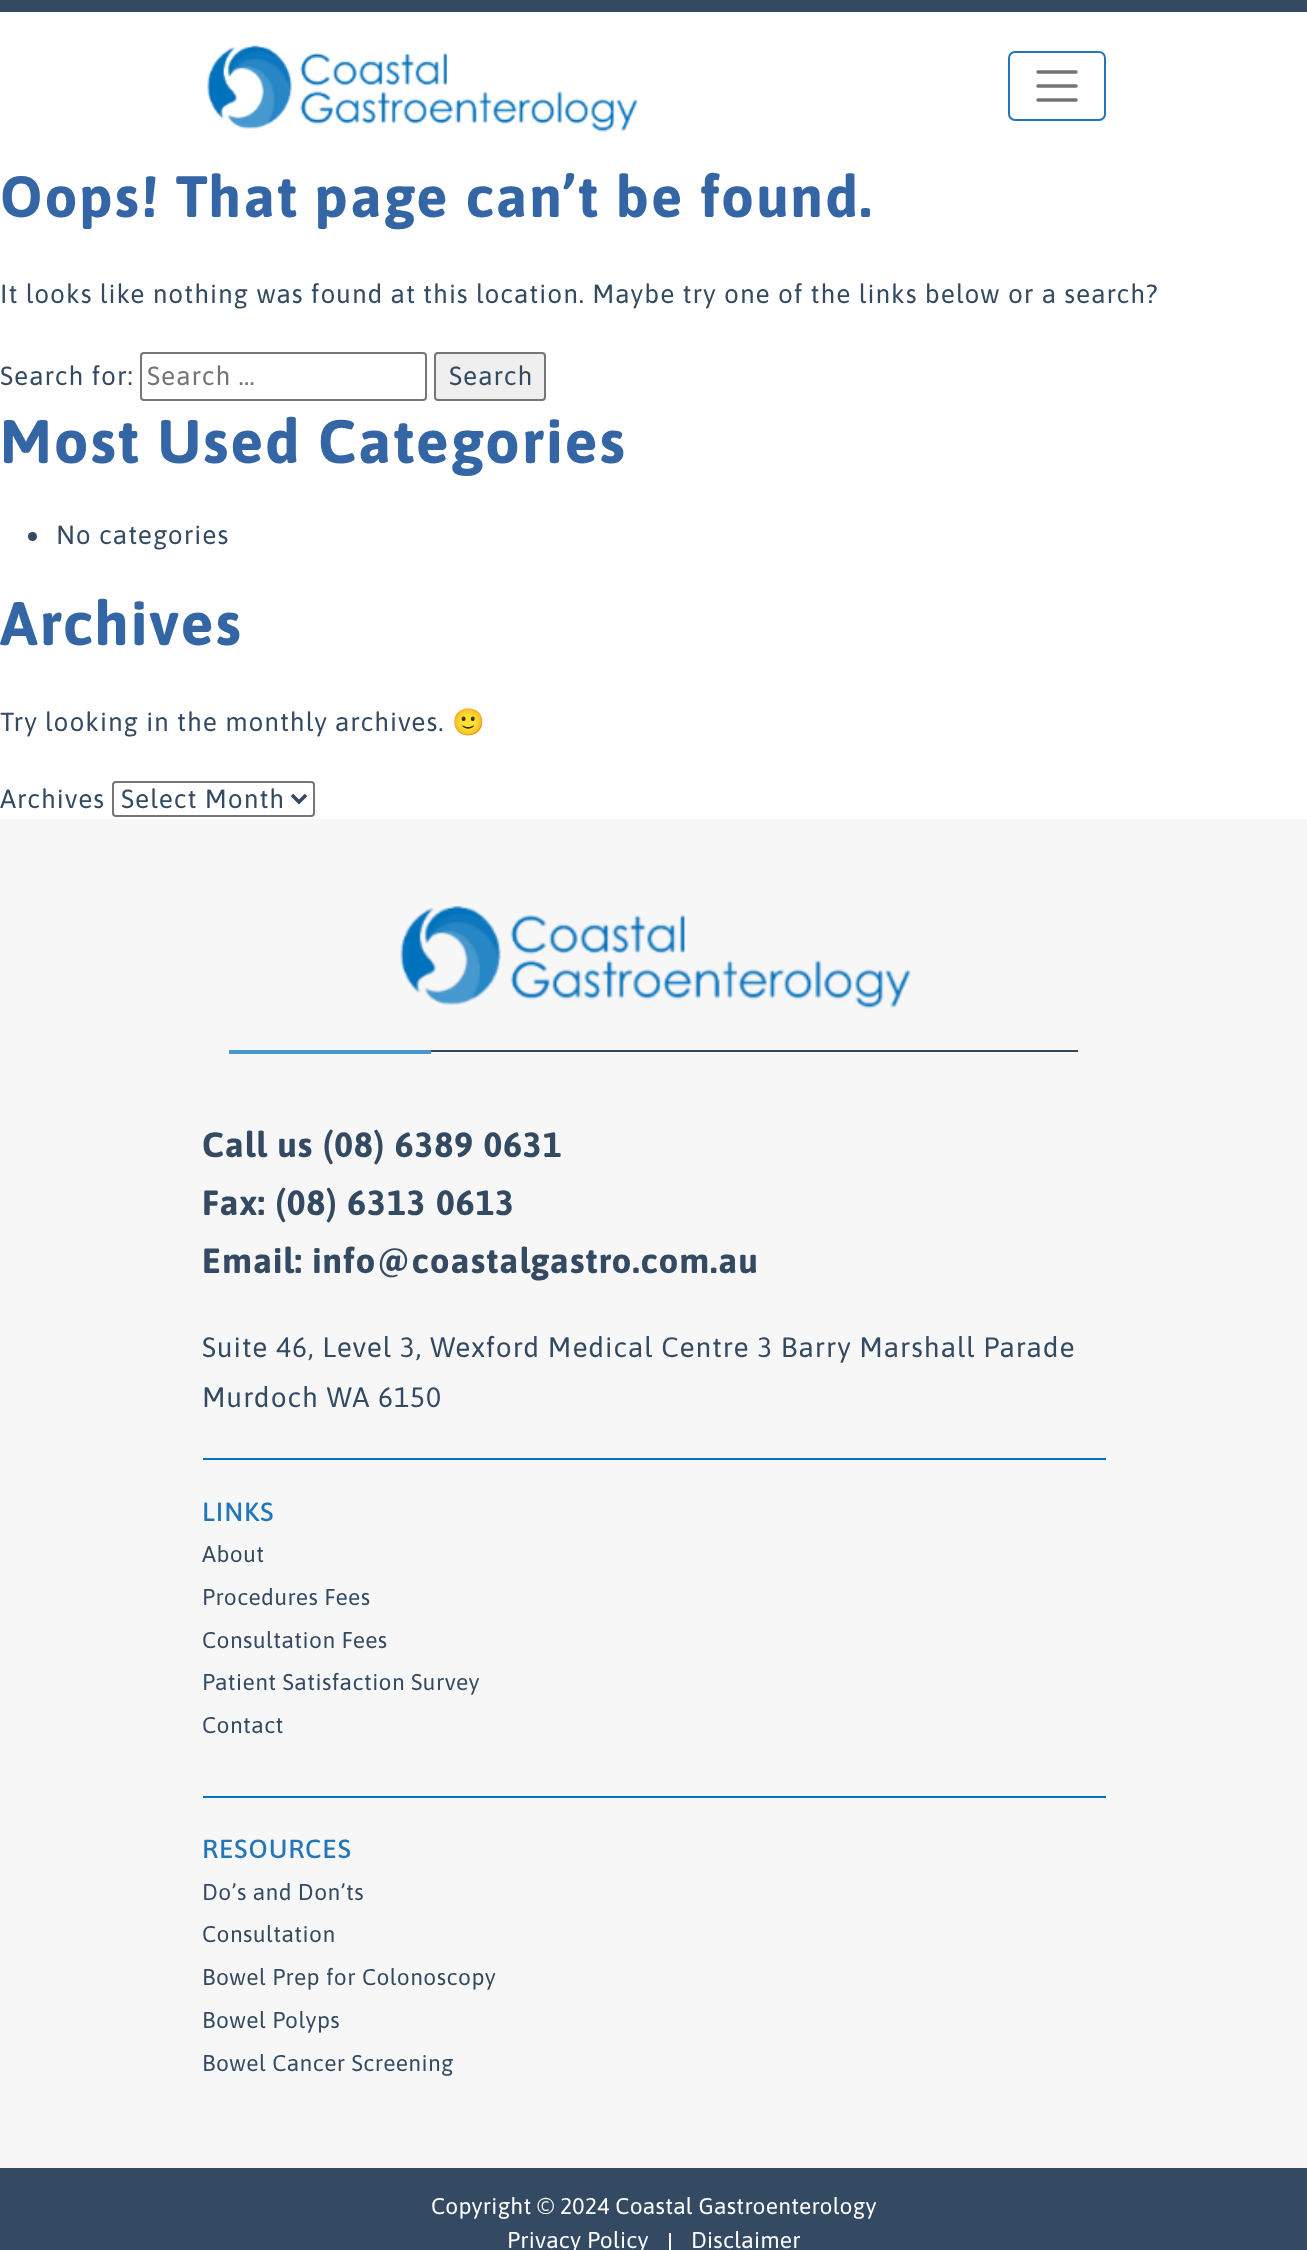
<svg xmlns="http://www.w3.org/2000/svg" width="1307" height="2250" viewBox="0 0 1307 2250">
  <style>
    .t1 { font: bold 58.1px Asap; letter-spacing: 2px; fill: #3465a4; }
    .t2 { font: 26.25px Asap; letter-spacing: 0.98px; fill: #334a62; }
    .t3 { font: 26.25px Asap; letter-spacing: 1px; fill: #334a62; }
    .t4 { font: 26.25px Asap; letter-spacing: 1px; fill: #757575; }
    .t5 { font: bold 61.25px Asap; letter-spacing: 2px; fill: #3465a4; }
    .t6 { font: 26.25px Noto Color Emoji; letter-spacing: 0.98px; fill: #334a62; }
    .t7 { font: bold 35px Asap; letter-spacing: 1.05px; fill: #334a62; }
    .t8 { font: 28px Asap; letter-spacing: 0.98px; fill: #334a62; }
    .t9 { font: 500 26.25px Asap; letter-spacing: 1px; fill: #2276b9; }
    .t10 { font: 22.75px Asap; letter-spacing: 0.45px; fill: #334a62; }
    .t11 { font: 22.75px Asap; letter-spacing: 0.25px; fill: #fff; }
  </style>
  <rect width="100%" height="100%" fill="#fff"/>
  <rect x="0" y="0" width="1307" height="12" fill="#334a62"/>
  <image x="207" y="45" width="431" height="87" href="images/1.png"/>
  <rect x="1009" y="52" width="96" height="68" rx="6" fill="none" stroke="#2276b9" stroke-width="2"/>
  <path d="M1038 72H1076M1038 86H1076M1038 100H1076" fill="none" stroke="#737373" stroke-width="3.5" stroke-linecap="round"/>
  <text x="0" y="217" class="t1">Oops! That page can’t be found.</text>
  <text x="0" y="303" class="t2">It looks like nothing was found at this location. Maybe try one of the links below or a search?</text>
  <text x="0" y="385" class="t3">Search for:</text>
  <rect x="141" y="353" width="285" height="47" rx="3" fill="none" stroke="#767676" stroke-width="2"/>
  <text x="147" y="385" class="t4">Search …</text>
  <rect x="435" y="353" width="110" height="47" rx="3" fill="#efefef" stroke="#767676" stroke-width="2"/>
  <text x="449" y="385" class="t3">Search</text>
  <text x="0" y="463" class="t5">Most Used Categories</text>
  <circle cx="32.5" cy="536.5" r="4.5" fill="#334a62"/>
  <text x="56" y="544" class="t3">No categories</text>
  <text x="0" y="645" class="t5">Archives</text>
  <text x="0" y="731" class="t2">Try looking in the monthly archives.</text>
  <text x="452" y="731" class="t6">🙂</text>
  <text x="0" y="808" class="t3">Archives</text>
  <rect x="113" y="782" width="201" height="34" rx="3" fill="none" stroke="#767676" stroke-width="2"/>
  <path d="M292 795L299 802L306 795" fill="none" stroke="#334a62" stroke-width="3.5"/>
  <text x="121" y="808" class="t3">Select Month</text>
  <rect x="0" y="819" width="1307" height="1349" fill="#f7f7f7"/>
  <rect x="431" y="1050" width="647" height="2" fill="#304963"/>
  <image x="400" y="906" width="511" height="103" href="images/2.png"/>
  <rect x="229" y="1050" width="202" height="4" fill="#4698ce"/>
  <text x="202" y="1157" class="t7">Call us (08) 6389 0631</text>
  <text x="202" y="1215" class="t7">Fax: (08) 6313 0613</text>
  <text x="202" y="1273" class="t7">Email: info@coastalgastro.com.au</text>
  <text x="202" y="1357" class="t8">Suite 46, Level 3, Wexford Medical Centre 3 Barry Marshall Parade</text>
  <text x="202" y="1407" class="t8">Murdoch WA 6150</text>
  <rect x="203" y="1458" width="903" height="2" fill="#0273bc"/>
  <text x="202" y="1521" class="t9">LINKS</text>
  <text x="202" y="1562" class="t10">About</text>
  <text x="202" y="1605" class="t10">Procedures Fees</text>
  <text x="202" y="1648" class="t10">Consultation Fees</text>
  <text x="202" y="1690" class="t10">Patient Satisfaction Survey</text>
  <text x="202" y="1733" class="t10">Contact</text>
  <rect x="203" y="1796" width="903" height="2" fill="#0273bc"/>
  <text x="202" y="1858" class="t9">RESOURCES</text>
  <text x="202" y="1900" class="t10">Do’s and Don’ts</text>
  <text x="202" y="1942" class="t10">Consultation</text>
  <text x="202" y="1985" class="t10">Bowel Prep for Colonoscopy</text>
  <text x="202" y="2028" class="t10">Bowel Polyps</text>
  <text x="202" y="2071" class="t10">Bowel Cancer Screening</text>
  <rect x="0" y="2168" width="1307" height="82" fill="#334a62"/>
  <text x="431" y="2214" class="t11">Copyright © 2024 Coastal Gastroenterology</text>
  <text x="507" y="2248" class="t11">Privacy Policy</text>
  <rect x="669" y="2233" width="2" height="17" fill="#fff"/>
  <text x="691" y="2248" class="t11">Disclaimer</text>
</svg>
